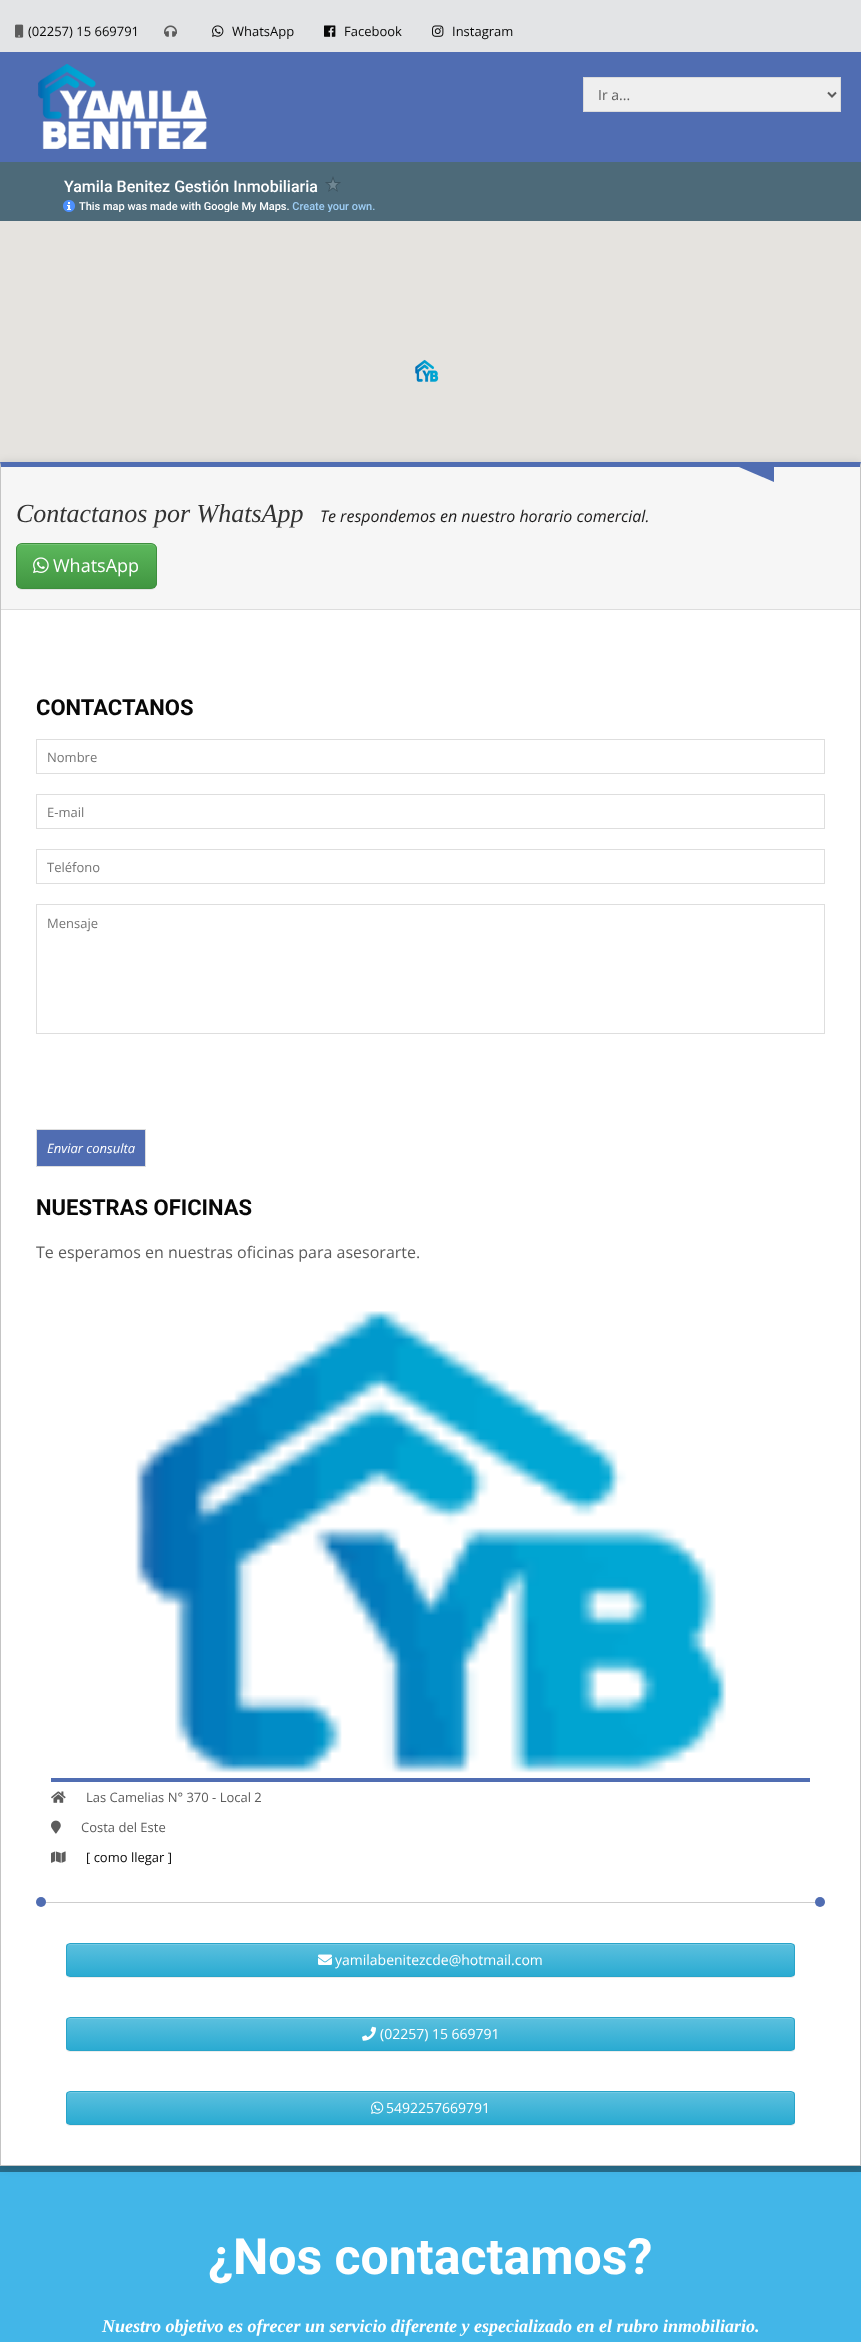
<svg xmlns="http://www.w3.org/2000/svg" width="861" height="2342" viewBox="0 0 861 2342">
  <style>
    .t1 { font: 13px Open Sans; fill: #080808; }
    .t2 { font: 14px Open Sans; fill: #5c5c5c; }
    .t3 { font: italic 26px Liberation Serif; fill: #333; }
    .t4 { font: italic 16px Open Sans; fill: #1c1b1b; }
    .t5 { font: 18px Open Sans; fill: #fff; }
    .t6 { font: bold 22px Roboto; fill: #080808; }
    .t7 { font: 13px Open Sans; fill: #757575; }
    .t8 { font: italic 13px Open Sans; fill: #fff; }
    .t9 { font: 16px Open Sans; fill: #5c5c5c; }
    .t10 { font: 13px Open Sans; fill: #5c5c5c; }
    .t11 { font: 14px Open Sans; fill: #fff; }
    .t12 { font: bold 50px Roboto; fill: #fff; }
    .t13 { font: italic bold 18px Liberation Serif; fill: #fff; }
  </style>
  <defs>
    <clipPath id="clip1"><rect x="16" y="543" width="141" height="46" rx="6"/></clipPath>
    <linearGradient id="g1" gradientUnits="userSpaceOnUse" x1="87" y1="544" x2="87" y2="588"><stop offset="0" stop-color="#5cb85c"/><stop offset="1" stop-color="#419641"/></linearGradient>
    <clipPath id="clip2"><rect x="66" y="1943" width="729" height="34" rx="4"/></clipPath>
    <linearGradient id="g2" gradientUnits="userSpaceOnUse" x1="431" y1="1944" x2="431" y2="1976"><stop offset="0" stop-color="#5bc0de"/><stop offset="1" stop-color="#2aabd2"/></linearGradient>
    <clipPath id="clip3"><rect x="66" y="2017" width="729" height="34" rx="4"/></clipPath>
    <linearGradient id="g3" gradientUnits="userSpaceOnUse" x1="431" y1="2018" x2="431" y2="2050"><stop offset="0" stop-color="#5bc0de"/><stop offset="1" stop-color="#2aabd2"/></linearGradient>
    <clipPath id="clip4"><rect x="66" y="2091" width="729" height="34" rx="4"/></clipPath>
    <linearGradient id="g4" gradientUnits="userSpaceOnUse" x1="431" y1="2092" x2="431" y2="2124"><stop offset="0" stop-color="#5bc0de"/><stop offset="1" stop-color="#2aabd2"/></linearGradient>
  </defs>
  <rect width="100%" height="100%" fill="#e3e4e6"/>
  <image x="15" y="24" width="9" height="14" href="images/1.png"/>
  <text x="28" y="36" class="t1">(02257) 15 669791</text>
  <image x="164" y="25" width="13" height="12" href="images/2.png"/>
  <image x="212" y="25" width="12" height="12" href="images/3.png"/>
  <text x="232" y="36" class="t1">WhatsApp</text>
  <image x="324" y="25" width="12" height="12" href="images/4.png"/>
  <text x="344" y="36" class="t1">Facebook</text>
  <image x="432" y="25" width="12" height="12" href="images/5.png"/>
  <text x="452" y="36" class="t1">Instagram</text>
  <rect x="0" y="52" width="861" height="110" fill="#506db2"/>
  <image x="38" y="64" width="169" height="85" href="images/6.png"/>
  <rect x="583.5" y="77.5" width="257" height="34" fill="#efefef" stroke="#dbdbdb"/>
  <path d="M828 92.5L832 96.5L836 92.5" fill="none" stroke="#5c5c5c" stroke-width="2"/>
  <text x="598" y="100" class="t2">Ir a...</text>
  <image x="0" y="162" width="861" height="305" href="images/7.png"/>
  <rect x="0" y="2172" width="861" height="170" fill="#42b6e8"/>
  <rect x="0" y="2166" width="861" height="6" fill="#286d8b"/>
  <rect x="0" y="463" width="861" height="1704" fill="#00000026" filter="blur(5px)"/>
  <rect x="1" y="610" width="859" height="1555" fill="#fff"/>
  <path d="M0 462H861L860 467H1Z" fill="#506db2"/>
  <path d="M861 462V2166L860 2165V467Z" fill="#c4c4c4"/>
  <rect x="0" y="2165" width="861" height="1" fill="#c4c4c4"/>
  <path d="M0 2166V462L1 467V2165Z" fill="#c4c4c4"/>
  <rect x="1" y="467" width="859" height="142" fill="#f6f6f6"/>
  <rect x="1" y="609" width="859" height="1" fill="#ddd"/>
  <path d="M774 467V482L739 467Z" fill="#506db2"/>
  <text x="16" y="522" class="t3">Contactanos por WhatsApp</text>
  <text x="320" y="522" class="t4">Te respondemos en nuestro horario comercial.</text>
  <rect x="16" y="544" width="141" height="46" rx="6" fill="#00000012" filter="blur(0.5px)"/>
  <g clip-path="url(#clip1)">
    <rect x="16" y="544" width="141" height="44" fill="url(#g1)"/>
  </g>
  <path d="M22 545H151C154 545 156 547 156 550V549C156 546 154 544 151 544H22C19 544 17 546 17 549V550C17 547 19 545 22 545Z" fill="#74c374"/>
  <rect x="16.5" y="543.5" width="140" height="45" rx="5.5" fill="none" stroke="#3e8f3e"/>
  <image x="33" y="557" width="16" height="17" href="images/8.png"/>
  <text x="53" y="572" class="t5">WhatsApp</text>
  <text x="36" y="715" class="t6">CONTACTANOS</text>
  <rect x="36.5" y="739.5" width="788" height="34" fill="none" stroke="#dedede"/>
  <text x="47" y="762" class="t7">Nombre</text>
  <rect x="36.5" y="794.5" width="788" height="34" fill="none" stroke="#dedede"/>
  <text x="47" y="817" class="t7">E-mail</text>
  <rect x="36.5" y="849.5" width="788" height="34" fill="none" stroke="#dedede"/>
  <text x="47" y="872" class="t7">Teléfono</text>
  <rect x="36.5" y="904.5" width="788" height="129" fill="none" stroke="#dedede"/>
  <text x="47" y="928" class="t7">Mensaje</text>
  <rect x="36.5" y="1129.5" width="109" height="37" fill="#506db2" stroke="#dedede"/>
  <text x="47" y="1153" class="t8">Enviar consulta</text>
  <text x="36" y="1215" class="t6">NUESTRAS OFICINAS</text>
  <text x="36" y="1258" class="t9">Te esperamos en nuestras oficinas para asesorarte.</text>
  <rect x="51" y="1778" width="759" height="4" fill="#506db2"/>
  <image x="135" y="1311" width="591" height="462" href="images/9.png"/>
  <image x="51" y="1791" width="15" height="12" href="images/10.png"/>
  <text x="86" y="1802" class="t10">Las Camelias N° 370 - Local 2</text>
  <image x="51" y="1820" width="10" height="14" href="images/11.png"/>
  <text x="81" y="1832" class="t10">Costa del Este</text>
  <image x="51" y="1851" width="15" height="12" href="images/12.png"/>
  <text x="86" y="1862" class="t1">[ como llegar ]</text>
  <rect x="36" y="1902" width="789" height="1" fill="#cdcdcd"/>
  <circle cx="41" cy="1902" r="5" fill="#506db2"/>
  <circle cx="820" cy="1902" r="5" fill="#506db2"/>
  <rect x="66" y="1944" width="729" height="34" rx="4" fill="#00000012" filter="blur(0.5px)"/>
  <g clip-path="url(#clip2)">
    <rect x="66" y="1944" width="729" height="32" fill="url(#g2)"/>
  </g>
  <path d="M70 1945H791C793 1945 794 1946 794 1948C794 1946 793 1944 791 1944H70C68 1944 67 1946 67 1948C67 1946 68 1945 70 1945Z" fill="#73c9e3"/>
  <rect x="66.5" y="1943.5" width="728" height="33" rx="3.5" fill="none" stroke="#28a4c9"/>
  <image x="318" y="1954" width="14" height="11" href="images/13.png"/>
  <text x="335" y="1965" class="t11">yamilabenitezcde@hotmail.com</text>
  <rect x="66" y="2018" width="729" height="34" rx="4" fill="#00000012" filter="blur(0.5px)"/>
  <g clip-path="url(#clip3)">
    <rect x="66" y="2018" width="729" height="32" fill="url(#g3)"/>
  </g>
  <path d="M70 2019H791C793 2019 794 2020 794 2022C794 2020 793 2018 791 2018H70C68 2018 67 2020 67 2022C67 2020 68 2019 70 2019Z" fill="#73c9e3"/>
  <rect x="66.5" y="2017.5" width="728" height="33" rx="3.5" fill="none" stroke="#28a4c9"/>
  <image x="362" y="2026" width="14" height="15" href="images/14.png"/>
  <text x="380" y="2039" class="t11">(02257) 15 669791</text>
  <rect x="66" y="2092" width="729" height="34" rx="4" fill="#00000012" filter="blur(0.5px)"/>
  <g clip-path="url(#clip4)">
    <rect x="66" y="2092" width="729" height="32" fill="url(#g4)"/>
  </g>
  <path d="M70 2093H791C793 2093 794 2094 794 2096C794 2094 793 2092 791 2092H70C68 2092 67 2094 67 2096C67 2094 68 2093 70 2093Z" fill="#73c9e3"/>
  <rect x="66.5" y="2091.5" width="728" height="33" rx="3.5" fill="none" stroke="#28a4c9"/>
  <image x="371" y="2101" width="13" height="13" href="images/15.png"/>
  <text x="386" y="2113" class="t11">5492257669791</text>
  <text x="208" y="2274" class="t12">¿Nos contactamos?</text>
  <text x="102" y="2332" class="t13">Nuestro objetivo es ofrecer un servicio diferente y especializado en el rubro inmobiliario.</text>
</svg>
